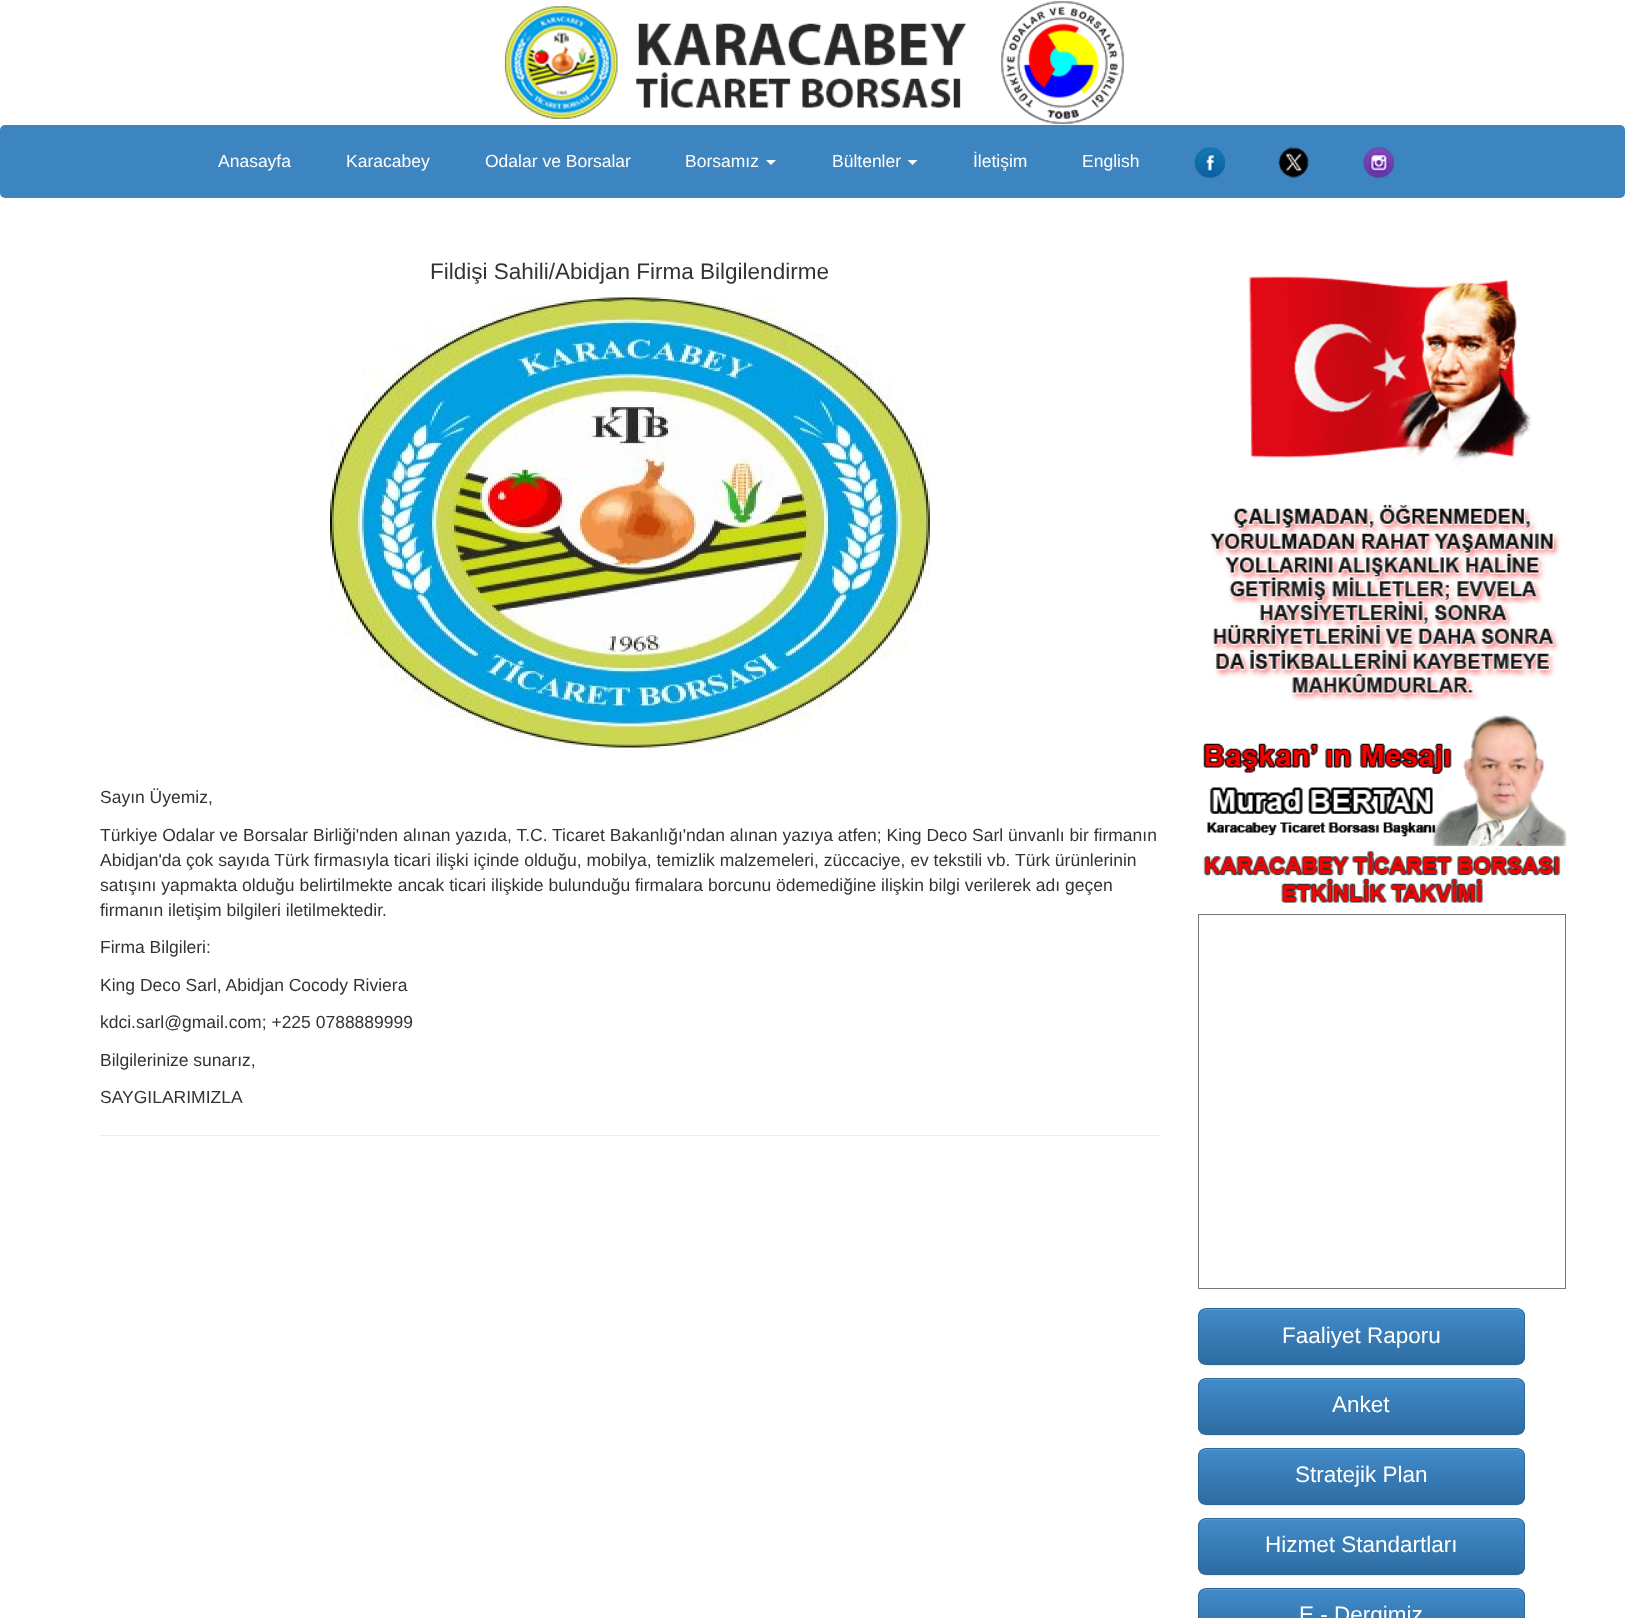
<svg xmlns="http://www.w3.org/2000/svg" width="1625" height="1618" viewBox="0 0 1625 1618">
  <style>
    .t1 { font: 17.5px Liberation Sans; fill: #fff; }
    .t2 { font: 22.5px Liberation Sans; fill: #333; }
    .t3 { font: 17.5px Liberation Sans; fill: #333; }
    .t4 { font: 22.5px Liberation Sans; fill: #fff; }
  </style>
  <defs>
    <clipPath id="clip1"><rect x="1198" y="1308" width="327" height="57" rx="8"/></clipPath>
    <linearGradient id="g1" gradientUnits="userSpaceOnUse" x1="1361" y1="1309" x2="1361" y2="1364"><stop offset="0" stop-color="#428bca"/><stop offset="1" stop-color="#2d6ca2"/></linearGradient>
    <clipPath id="clip2"><rect x="1198" y="1378" width="327" height="57" rx="8"/></clipPath>
    <linearGradient id="g2" gradientUnits="userSpaceOnUse" x1="1361" y1="1379" x2="1361" y2="1434"><stop offset="0" stop-color="#428bca"/><stop offset="1" stop-color="#2d6ca2"/></linearGradient>
    <clipPath id="clip3"><rect x="1198" y="1448" width="327" height="57" rx="8"/></clipPath>
    <linearGradient id="g3" gradientUnits="userSpaceOnUse" x1="1361" y1="1449" x2="1361" y2="1504"><stop offset="0" stop-color="#428bca"/><stop offset="1" stop-color="#2d6ca2"/></linearGradient>
    <clipPath id="clip4"><rect x="1198" y="1518" width="327" height="57" rx="8"/></clipPath>
    <linearGradient id="g4" gradientUnits="userSpaceOnUse" x1="1361" y1="1519" x2="1361" y2="1574"><stop offset="0" stop-color="#428bca"/><stop offset="1" stop-color="#2d6ca2"/></linearGradient>
    <clipPath id="clip5"><rect x="1198" y="1588" width="327" height="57" rx="8"/></clipPath>
    <linearGradient id="g5" gradientUnits="userSpaceOnUse" x1="1361" y1="1589" x2="1361" y2="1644"><stop offset="0" stop-color="#428bca"/><stop offset="1" stop-color="#2d6ca2"/></linearGradient>
  </defs>
  <rect width="100%" height="100%" fill="#fff"/>
  <image x="504" y="6" width="463" height="113" href="images/1.png"/>
  <image x="1001" y="1" width="123" height="123" href="images/2.png"/>
  <rect x="0" y="125" width="1625" height="73" rx="5" fill="#3d85c0"/>
  <text x="218" y="167" class="t1">Anasayfa</text>
  <text x="346" y="167" class="t1">Karacabey</text>
  <text x="485" y="167" class="t1">Odalar ve Borsalar</text>
  <text x="685" y="167" class="t1">Borsamız</text>
  <path d="M766 160H776L771 165Z" fill="#fff"/>
  <text x="832" y="167" class="t1">Bültenler</text>
  <path d="M907.5 160H917.5L912.5 165Z" fill="#fff"/>
  <text x="973" y="167" class="t1">İletişim</text>
  <text x="1082" y="167" class="t1">English</text>
  <image x="1195" y="147" width="30" height="31" href="images/3.png"/>
  <image x="1278" y="147" width="31" height="31" href="images/4.png"/>
  <image x="1363" y="147" width="31" height="31" href="images/5.png"/>
  <text x="430" y="279" class="t2">Fildişi Sahili/Abidjan Firma Bilgilendirme</text>
  <image x="330" y="297" width="600" height="451" href="images/6.png"/>
  <text x="100" y="803" class="t3">Sayın Üyemiz,</text>
  <text x="100" y="841" class="t3">Türkiye Odalar ve Borsalar Birliği'nden alınan yazıda, T.C. Ticaret Bakanlığı'ndan alınan yazıya atfen; King Deco Sarl ünvanlı bir firmanın</text>
  <text x="100" y="866" class="t3">Abidjan'da çok sayıda Türk firmasıyla ticari ilişki içinde olduğu, mobilya, temizlik malzemeleri, züccaciye, ev tekstili vb. Türk ürünlerinin</text>
  <text x="100" y="891" class="t3">satışını yapmakta olduğu belirtilmekte ancak ticari ilişkide bulunduğu firmalara borcunu ödemediğine ilişkin bilgi verilerek adı geçen</text>
  <text x="100" y="916" class="t3">firmanın iletişim bilgileri iletilmektedir.</text>
  <text x="100" y="953" class="t3">Firma Bilgileri:</text>
  <text x="100" y="991" class="t3">King Deco Sarl, Abidjan Cocody Riviera</text>
  <text x="100" y="1028" class="t3">kdci.sarl@gmail.com; +225 0788889999</text>
  <text x="100" y="1066" class="t3">Bilgilerinize sunarız,</text>
  <text x="100" y="1103" class="t3">SAYGILARIMIZLA</text>
  <rect x="100" y="1135" width="1060" height="1" fill="#eee"/>
  <image x="1248" y="276" width="284" height="190" href="images/7.png"/>
  <image x="1210" y="504" width="350" height="197" href="images/8.png"/>
  <image x="1203" y="715" width="364" height="132" href="images/9.png"/>
  <image x="1203" y="846" width="363" height="59" href="images/10.png"/>
  <rect x="1198.5" y="914.5" width="367" height="374" fill="none" stroke="#777"/>
  <rect x="1198" y="1309" width="327" height="57" rx="8" fill="#00000012" filter="blur(0.5px)"/>
  <g clip-path="url(#clip1)">
    <rect x="1198" y="1309" width="327" height="55" fill="url(#g1)"/>
  </g>
  <path d="M1205 1310H1518C1521 1310 1524 1313 1524 1316V1315C1524 1312 1521 1309 1518 1309H1205C1202 1309 1199 1312 1199 1315V1316C1199 1313 1202 1310 1205 1310Z" fill="#5e9cd2"/>
  <rect x="1198.5" y="1308.5" width="326" height="56" rx="7.5" fill="none" stroke="#2b669a"/>
  <text x="1282" y="1343" class="t4">Faaliyet Raporu</text>
  <rect x="1198" y="1379" width="327" height="57" rx="8" fill="#00000012" filter="blur(0.5px)"/>
  <g clip-path="url(#clip2)">
    <rect x="1198" y="1379" width="327" height="55" fill="url(#g2)"/>
  </g>
  <path d="M1205 1380H1518C1521 1380 1524 1383 1524 1386V1385C1524 1382 1521 1379 1518 1379H1205C1202 1379 1199 1382 1199 1385V1386C1199 1383 1202 1380 1205 1380Z" fill="#5e9cd2"/>
  <rect x="1198.5" y="1378.5" width="326" height="56" rx="7.5" fill="none" stroke="#2b669a"/>
  <text x="1332" y="1412" class="t4">Anket</text>
  <rect x="1198" y="1449" width="327" height="57" rx="8" fill="#00000012" filter="blur(0.5px)"/>
  <g clip-path="url(#clip3)">
    <rect x="1198" y="1449" width="327" height="55" fill="url(#g3)"/>
  </g>
  <path d="M1205 1450H1518C1521 1450 1524 1453 1524 1456V1455C1524 1452 1521 1449 1518 1449H1205C1202 1449 1199 1452 1199 1455V1456C1199 1453 1202 1450 1205 1450Z" fill="#5e9cd2"/>
  <rect x="1198.5" y="1448.5" width="326" height="56" rx="7.5" fill="none" stroke="#2b669a"/>
  <text x="1295" y="1482" class="t4">Stratejik Plan</text>
  <rect x="1198" y="1519" width="327" height="57" rx="8" fill="#00000012" filter="blur(0.5px)"/>
  <g clip-path="url(#clip4)">
    <rect x="1198" y="1519" width="327" height="55" fill="url(#g4)"/>
  </g>
  <path d="M1205 1520H1518C1521 1520 1524 1523 1524 1526V1525C1524 1522 1521 1519 1518 1519H1205C1202 1519 1199 1522 1199 1525V1526C1199 1523 1202 1520 1205 1520Z" fill="#5e9cd2"/>
  <rect x="1198.5" y="1518.5" width="326" height="56" rx="7.5" fill="none" stroke="#2b669a"/>
  <text x="1265" y="1552" class="t4">Hizmet Standartları</text>
  <g clip-path="url(#clip5)">
    <rect x="1198" y="1589" width="327" height="29" fill="url(#g5)"/>
  </g>
  <path d="M1205 1590H1518C1521 1590 1524 1593 1524 1596V1595C1524 1592 1521 1589 1518 1589H1205C1202 1589 1199 1592 1199 1595V1596C1199 1593 1202 1590 1205 1590Z" fill="#5e9cd2"/>
  <rect x="1198.5" y="1588.5" width="326" height="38" rx="7.5" fill="none" stroke="#2b669a"/>
  <text x="1299" y="1622" class="t4">E - Dergimiz</text>
</svg>
